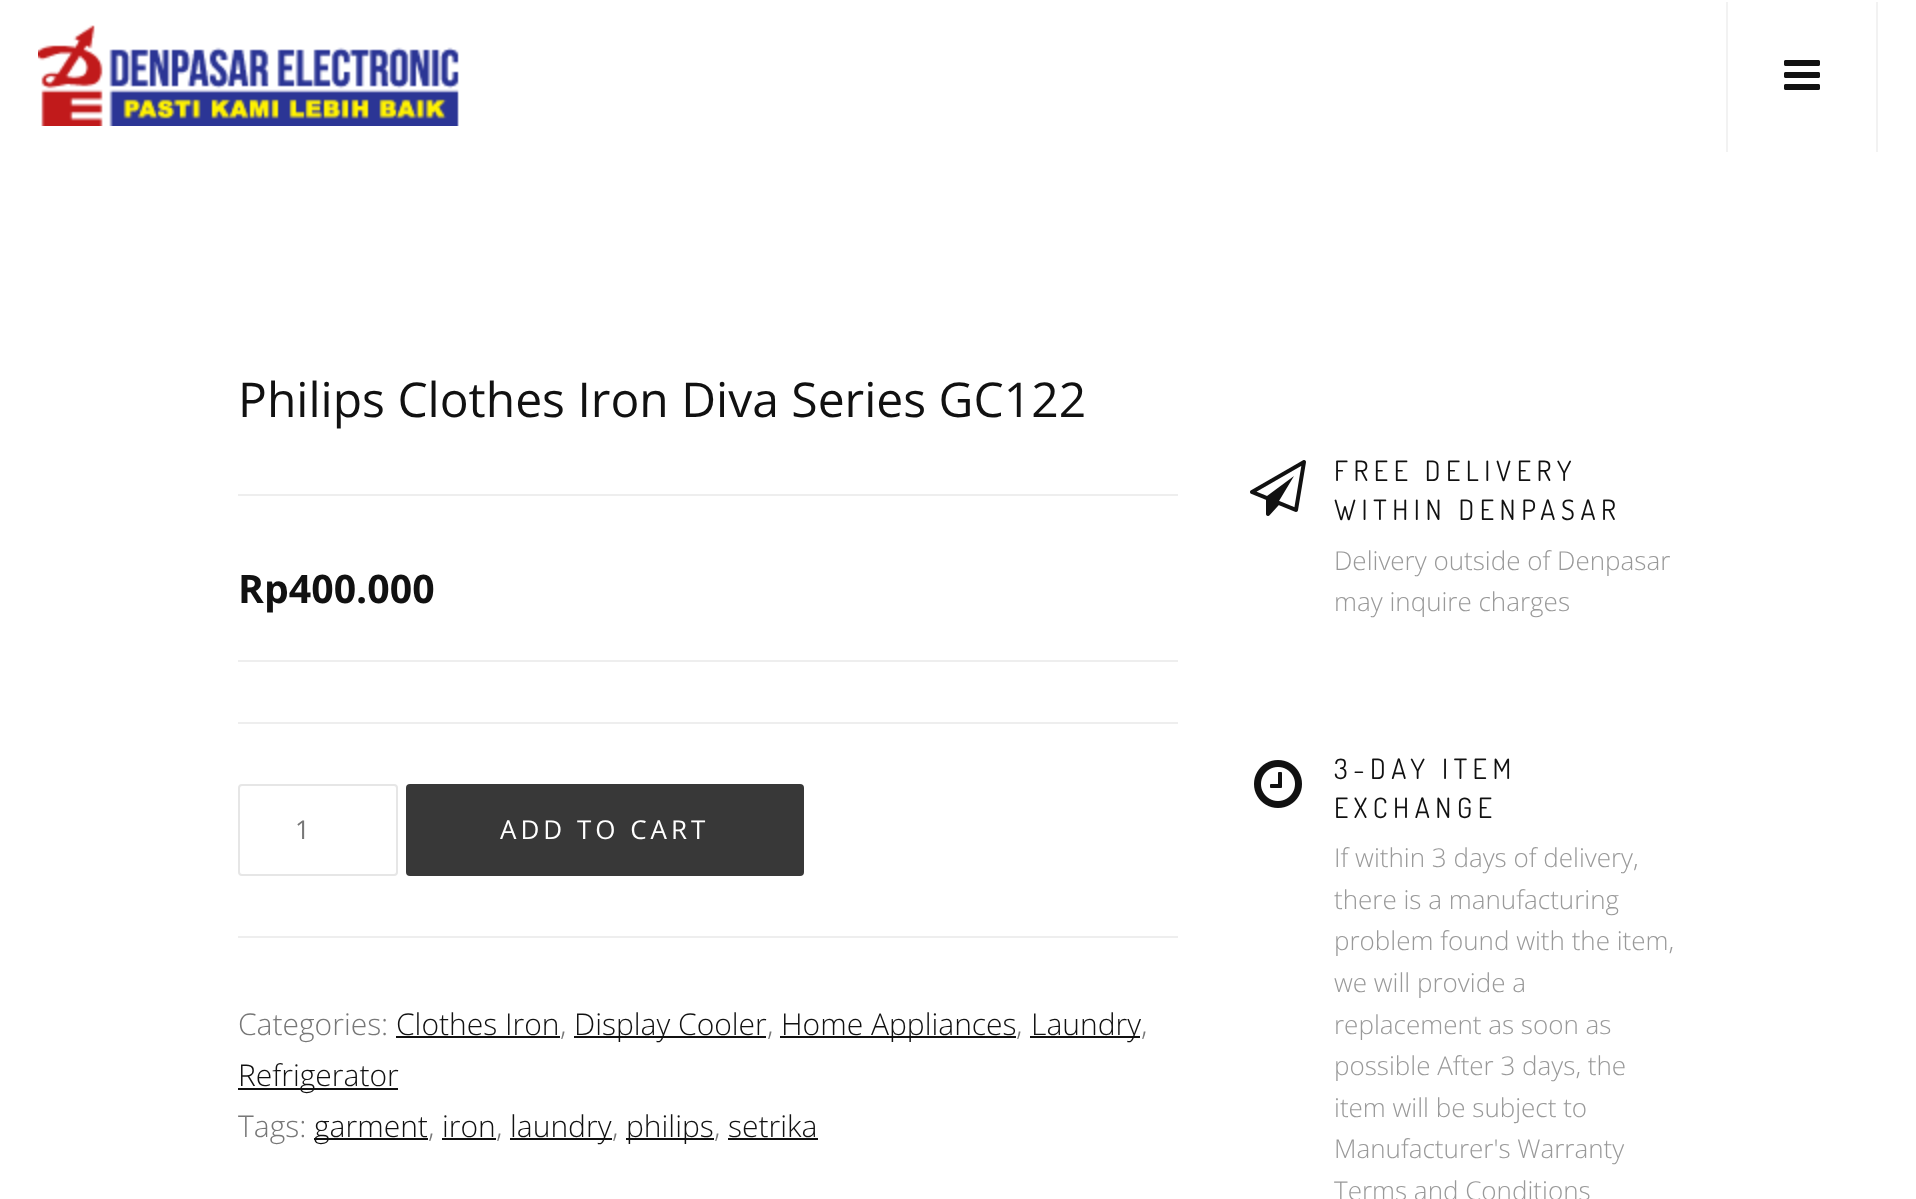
<svg xmlns="http://www.w3.org/2000/svg" width="1916" height="1199" viewBox="0 0 1916 1199">
  <style>
    .t1 { font: 48px Open Sans; fill: #111; }
    .t2 { font: bold 39.25px Open Sans; fill: #111; }
    .t3 { font: 26px Open Sans; letter-spacing: 2px; fill: #777; }
    .t4 { font: 26px Open Sans; letter-spacing: 4px; fill: #fff; }
    .t5 { font: 300 30px Open Sans; fill: #777; }
    .t6 { font: 300 30px Open Sans; fill: #111; }
    .t7 { font: 28px Dosis; letter-spacing: 5.6px; fill: #111; }
    .t8 { font: 300 26px Open Sans; fill: #999; }
  </style>
  <rect width="100%" height="100%" fill="#fff"/>
  <image x="38" y="25" width="421" height="101" href="images/1.png"/>
  <rect x="1876" y="2" width="2" height="150" fill="#f2f2f2"/>
  <rect x="1726" y="2" width="2" height="150" fill="#f2f2f2"/>
  <image x="1784" y="60" width="36" height="30" href="images/2.png"/>
  <text x="238" y="417" class="t1">Philips Clothes Iron Diva Series GC122</text>
  <rect x="238" y="494" width="940" height="2" fill="#eee"/>
  <text x="238" y="603" class="t2">Rp400.000</text>
  <rect x="238" y="660" width="940" height="2" fill="#eee"/>
  <rect x="238" y="722" width="940" height="2" fill="#eee"/>
  <rect x="239" y="785" width="158" height="90" rx="3" fill="none" stroke="#e6e6e6" stroke-width="2"/>
  <text x="295" y="839" class="t3">1</text>
  <rect x="406" y="784" width="398" height="92" rx="4" fill="#383838"/>
  <text x="500" y="839" class="t4">ADD TO CART</text>
  <rect x="238" y="936" width="940" height="2" fill="#eee"/>
  <text x="238" y="1035" class="t5">Categories:</text>
  <text x="396" y="1035" class="t6">Clothes Iron</text>
  <rect x="396" y="1036" width="164" height="2" fill="#111"/>
  <text x="560" y="1035" class="t5">,</text>
  <rect x="574" y="1036" width="192" height="2" fill="#111"/>
  <text x="574" y="1035" class="t6">Display Cooler</text>
  <text x="767" y="1035" class="t5">,</text>
  <rect x="780" y="1036" width="236" height="2" fill="#111"/>
  <text x="781" y="1035" class="t6">Home Appliances</text>
  <text x="1016" y="1035" class="t5">,</text>
  <rect x="1030" y="1036" width="110" height="2" fill="#111"/>
  <text x="1031" y="1035" class="t6">Laundry</text>
  <text x="1141" y="1035" class="t5">,</text>
  <rect x="238" y="1088" width="160" height="2" fill="#111"/>
  <text x="238" y="1086" class="t6">Refrigerator</text>
  <text x="238" y="1137" class="t5">Tags:</text>
  <rect x="314" y="1138" width="114" height="2" fill="#111"/>
  <text x="314" y="1137" class="t6">garment</text>
  <text x="428" y="1137" class="t5">,</text>
  <text x="442" y="1137" class="t6">iron</text>
  <rect x="442" y="1138" width="54" height="2" fill="#111"/>
  <text x="496" y="1137" class="t5">,</text>
  <rect x="510" y="1138" width="102" height="2" fill="#111"/>
  <text x="510" y="1137" class="t6">laundry</text>
  <text x="612" y="1137" class="t5">,</text>
  <rect x="626" y="1138" width="88" height="2" fill="#111"/>
  <text x="626" y="1137" class="t6">philips</text>
  <text x="714" y="1137" class="t5">,</text>
  <text x="728" y="1137" class="t6">setrika</text>
  <rect x="728" y="1138" width="90" height="2" fill="#111"/>
  <image x="1250" y="460" width="56" height="56" href="images/3.png"/>
  <text x="1334" y="481" class="t7">FREE DELIVERY</text>
  <text x="1334" y="520" class="t7">WITHIN DENPASAR</text>
  <text x="1334" y="570" class="t8">Delivery outside of Denpasar</text>
  <text x="1334" y="611" class="t8">may inquire charges</text>
  <image x="1254" y="760" width="48" height="48" href="images/4.png"/>
  <text x="1334" y="779" class="t7">3-DAY ITEM</text>
  <text x="1334" y="818" class="t7">EXCHANGE</text>
  <text x="1334" y="867" class="t8">If within 3 days of delivery,</text>
  <text x="1334" y="909" class="t8">there is a manufacturing</text>
  <text x="1334" y="950" class="t8">problem found with the item,</text>
  <text x="1334" y="992" class="t8">we will provide a</text>
  <text x="1334" y="1034" class="t8">replacement as soon as</text>
  <text x="1334" y="1075" class="t8">possible After 3 days, the</text>
  <text x="1334" y="1117" class="t8">item will be subject to</text>
  <text x="1334" y="1158" class="t8">Manufacturer's Warranty</text>
  <text x="1334" y="1200" class="t8">Terms and Conditions</text>
</svg>
